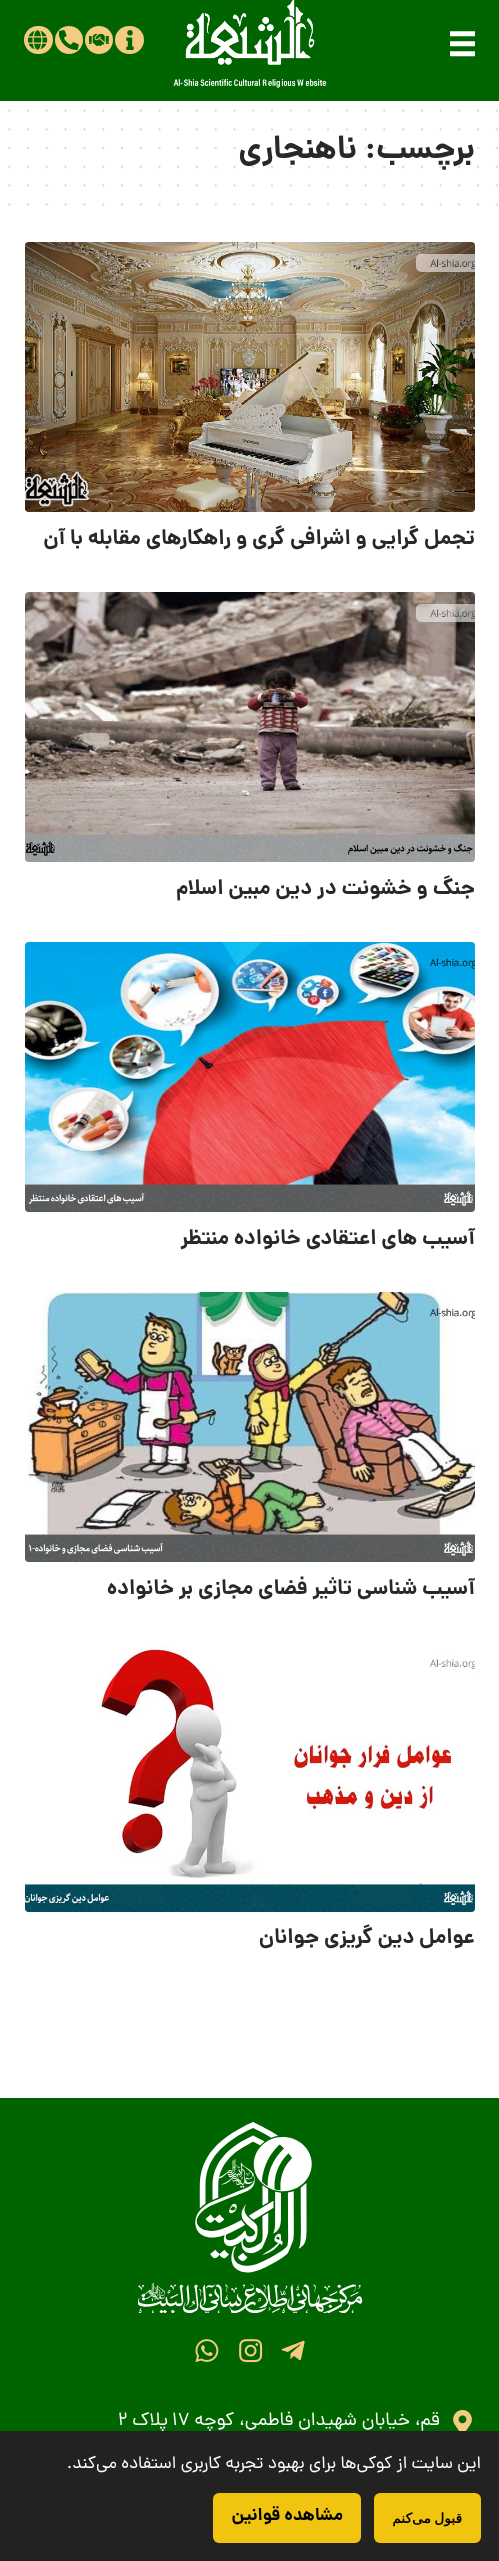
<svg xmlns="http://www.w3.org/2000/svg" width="499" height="2561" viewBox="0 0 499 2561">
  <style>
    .t1 { font: bold 32.5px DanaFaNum; direction: rtl; fill: #282828; }
    .t2 { font: bold 21.25px DanaFaNum; direction: rtl; fill: #282828; }
    .t3 { font: 18.75px DanaFaNum; direction: rtl; fill: #fff; }
    .t4 { font: 18.75px DanaFaNum; fill: #fff; }
    .t5 { font: 17.5px DanaFaNum; direction: rtl; fill: #fff; }
    .t6 { font: bold 13.75px DejaVu Sans; direction: rtl; fill: #000; }
    .t7 { font: bold 17.5px DanaFaNum; direction: rtl; fill: #000; }
  </style>
  <rect width="100%" height="100%" fill="#fff"/>
  <rect x="0" y="0" width="499" height="101" fill="#006400"/>
  <image x="450" y="31" width="25" height="26" href="images/1.png"/>
  <image x="173" y="0" width="154" height="88" href="images/2.png"/>
  <rect x="115" y="26" width="29" height="28" rx="14" fill="#f3cc81"/>
  <image x="126" y="30" width="8" height="20" href="images/3.png"/>
  <circle cx="99" cy="40" r="14" fill="#f3cc81"/>
  <image x="89" y="34" width="20" height="12" href="images/4.png"/>
  <circle cx="69" cy="40" r="14" fill="#f3cc81"/>
  <image x="59" y="30" width="20" height="20" href="images/5.png"/>
  <rect x="24" y="26" width="29" height="28" rx="14" fill="#f3cc81"/>
  <image x="28" y="30" width="20" height="20" href="images/6.png"/>
  <path d="M9.4 110.6H497.1" fill="none" stroke="#dfdfdf" stroke-width="2.5" stroke-linecap="round" stroke-dasharray="0 18.75"/>
  <path d="M9.4 129.4H497.1" fill="none" stroke="#dfdfdf" stroke-width="2.5" stroke-linecap="round" stroke-dasharray="0 18.75"/>
  <text x="475" y="158" class="t1">برچسب:</text>
  <text x="357" y="158" class="t1">ناهنجاری</text>
  <path d="M9.4 148.1H497.1" fill="none" stroke="#28282826" stroke-width="2.5" stroke-linecap="round" stroke-dasharray="0 18.75"/>
  <path d="M9.4 166.9H497.1" fill="none" stroke="#dfdfdf" stroke-width="2.5" stroke-linecap="round" stroke-dasharray="0 18.75"/>
  <path d="M9.4 185.6H497.1" fill="none" stroke="#dfdfdf" stroke-width="2.5" stroke-linecap="round" stroke-dasharray="0 18.75"/>
  <path d="M9.4 204.4H497.1" fill="none" stroke="#dfdfdf" stroke-width="2.5" stroke-linecap="round" stroke-dasharray="0 18.75"/>
  <image x="25" y="242" width="450" height="270" href="images/7.png"/>
  <text x="475" y="544" class="t2">تجمل گرایی و اشرافی گری و راهکارهای مقابله با آن</text>
  <image x="25" y="592" width="450" height="270" href="images/8.png"/>
  <text x="475" y="894" class="t2">جنگ و خشونت در دین مبین اسلام</text>
  <image x="25" y="942" width="450" height="270" href="images/9.png"/>
  <text x="475" y="1244" class="t2">آسیب های اعتقادی خانواده منتظر</text>
  <image x="25" y="1292" width="450" height="270" href="images/10.png"/>
  <text x="475" y="1594" class="t2">آسیب شناسی تاثیر فضای مجازی بر خانواده</text>
  <image x="25" y="1642" width="450" height="270" href="images/11.png"/>
  <text x="475" y="1943" class="t2">عوامل دین گریزی جوانان</text>
  <rect x="0" y="2098" width="499" height="333" fill="#006400"/>
  <image x="138" y="2122" width="225" height="191" href="images/12.png"/>
  <image x="281" y="2340" width="24" height="20" href="images/13.png"/>
  <image x="239" y="2339" width="24" height="24" href="images/14.png"/>
  <image x="195" y="2339" width="24" height="23" href="images/15.png"/>
  <image x="453" y="2410" width="19" height="21" href="images/16.png"/>
  <text x="440" y="2425" class="t3">قم، خیابان شهیدان فاطمی، کوچه</text>
  <text x="172" y="2425" class="t4">17</text>
  <text x="168" y="2425" class="t3">پلاک</text>
  <text x="118" y="2425" class="t4">2</text>
  <rect x="0" y="2431" width="499" height="130" fill="#222"/>
  <text x="481" y="2468" class="t5">این سایت از کوکی‌ها برای بهبود تجربه کاربری استفاده می‌کند.</text>
  <rect x="374" y="2493" width="107" height="50" rx="6" fill="#f1c40f"/>
  <text x="462" y="2523" word-spacing="-1" class="t6">قبول می‌کنم</text>
  <rect x="213" y="2493" width="148" height="50" rx="6" fill="#f1c40f"/>
  <text x="343" y="2520" class="t7">مشاهده قوانین</text>
</svg>
